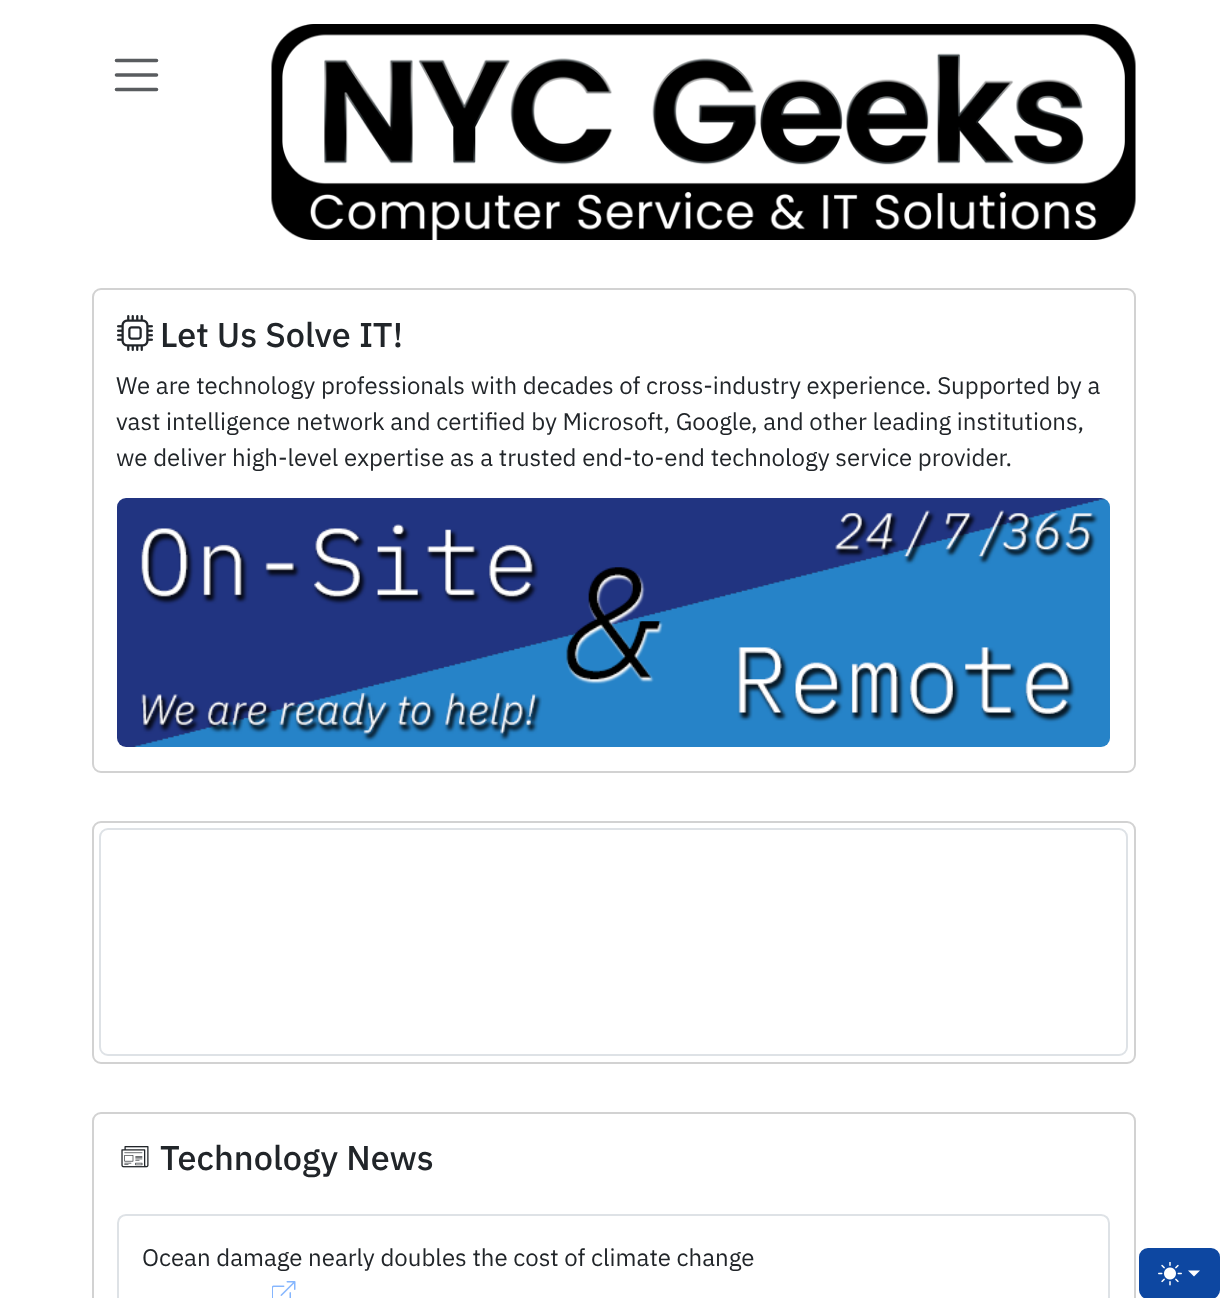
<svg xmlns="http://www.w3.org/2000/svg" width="1225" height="1298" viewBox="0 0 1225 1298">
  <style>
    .t1 { font: 500 34.25px IBM Plex Sans; fill: #212529; }
    .t2 { font: 24px IBM Plex Sans; fill: #212529; }
  </style>
  <rect width="100%" height="100%" fill="#fff"/>
  <path d="M116.5 60.5H156.5M116.5 75H156.5M116.5 89.5H156.5" fill="none" stroke="#595c5f" stroke-width="3.6" stroke-linecap="round"/>
  <image x="271" y="24" width="865" height="216" href="images/1.png"/>
  <rect x="93" y="289" width="1042" height="483" rx="8" fill="none" stroke="#d2d2d2" stroke-width="2"/>
  <image x="117" y="315" width="36" height="36" href="images/2.png"/>
  <text x="160" y="347" class="t1">Let Us Solve IT!</text>
  <text x="116" y="394" class="t2">We are technology professionals with decades of cross-industry experience. Supported by a</text>
  <text x="116" y="430" class="t2">vast intelligence network and certified by Microsoft, Google, and other leading institutions,</text>
  <text x="116" y="466" class="t2">we deliver high-level expertise as a trusted end-to-end technology service provider.</text>
  <image x="117" y="498" width="993" height="249" href="images/3.png"/>
  <rect x="93" y="822" width="1042" height="241" rx="8" fill="none" stroke="#d2d2d2" stroke-width="2"/>
  <rect x="100" y="829" width="1027" height="226" rx="8" fill="none" stroke="#dee2e6" stroke-width="2"/>
  <rect x="93" y="1113" width="1042" height="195" rx="8" fill="none" stroke="#d2d2d2" stroke-width="2"/>
  <image x="121" y="1146" width="28" height="22" href="images/4.png"/>
  <text x="160" y="1170" class="t1">Technology News</text>
  <path d="M126 1215H1101C1105.5 1215 1109 1218.5 1109 1223V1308H118V1223C118 1218.5 121.5 1215 126 1215Z" fill="none" stroke="#dee2e6" stroke-width="2"/>
  <text x="142" y="1266" class="t2">Ocean damage nearly doubles the cost of climate change</text>
  <image x="272" y="1281" width="24" height="17" href="images/5.png"/>
  <rect x="1140" y="1249" width="79" height="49" rx="8" fill="#0d47a1" stroke="#0d47a1" stroke-width="2"/>
  <image x="1158" y="1262" width="24" height="24" href="images/6.png"/>
  <path d="M1188 1270.5H1200L1194 1276.5Z" fill="#fff"/>
</svg>
